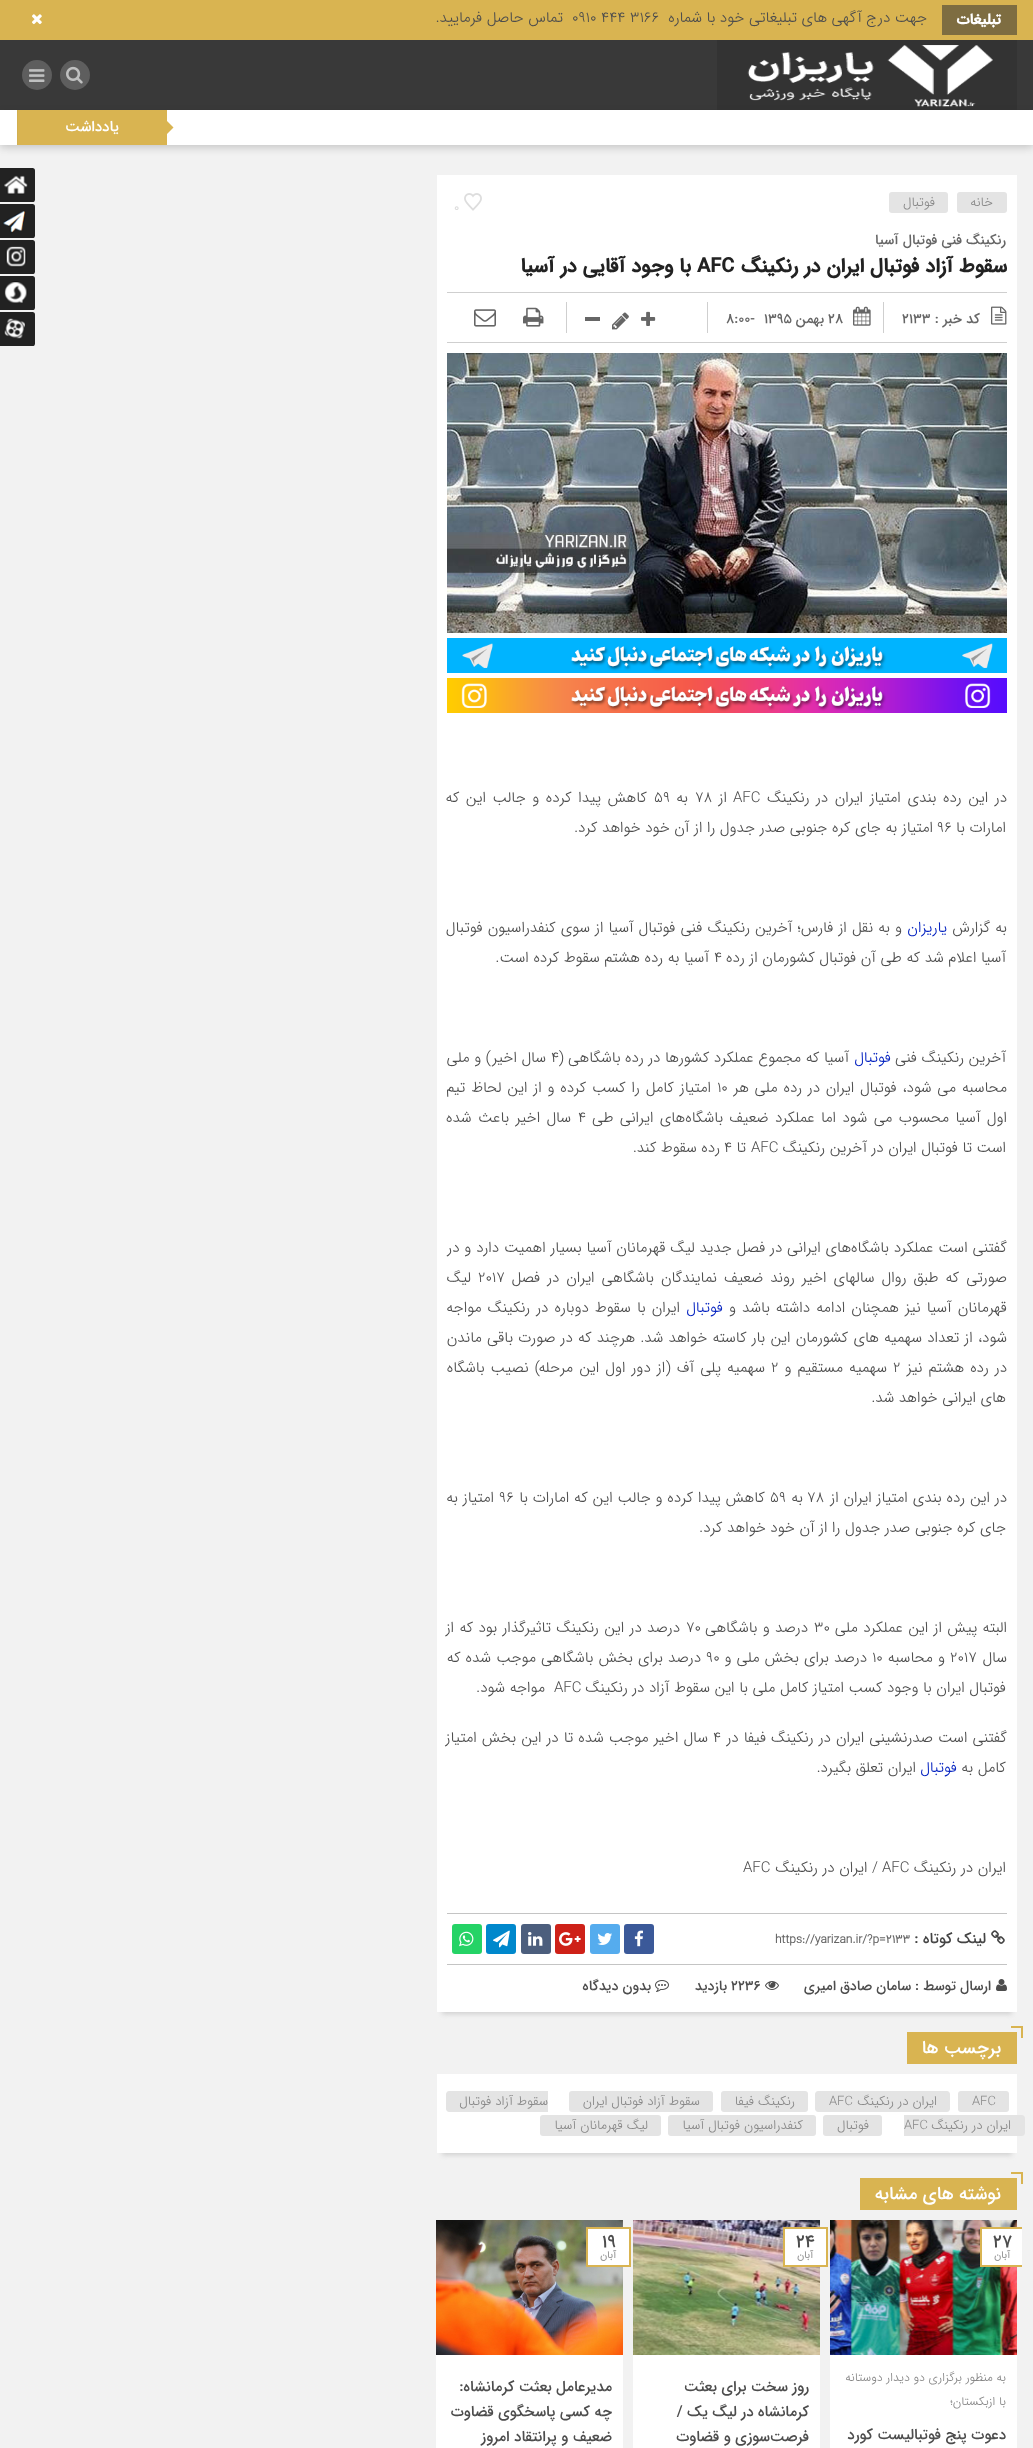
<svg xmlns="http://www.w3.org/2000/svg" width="1033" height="2448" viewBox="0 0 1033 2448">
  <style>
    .t1 { font: bold 15px 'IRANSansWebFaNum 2'; direction: rtl; fill: #fff; }
    .t2 { font: 300 15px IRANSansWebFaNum; direction: rtl; fill: #4d4d4d; }
    .t3 { font: 300 15px IRANSansWebFaNum; fill: #4d4d4d; }
    .t4 { font: 500 15px IRANSansWebFaNum; direction: rtl; fill: #fff; }
    .t5 { font: 300 13px IRANSansWebFaNum; direction: rtl; fill: #888; }
    .t6 { font: 500 12px IRANSansWebFaNum; fill: #ddd; }
    .t7 { font: 500 14px IRANSansWebFaNum; direction: rtl; fill: #666; }
    .t8 { font: bold 20px 'IRANSansWebFaNum 2'; direction: rtl; fill: #222; }
    .t9 { font: bold 20px 'IRANSansWebFaNum 2'; fill: #222; }
    .t10 { font: 500 14px IRANSansWebFaNum; fill: #666; }
    .t11 { font: 300 15px IRANSansWebFaNum; direction: rtl; fill: #0321c0; }
    .t12 { font: 500 15px IRANSansWebFaNum; direction: rtl; fill: #444; }
    .t13 { font: bold 12px IRANSansWebFaNum; fill: #666; }
    .t14 { font: 500 14px IRANSansWebFaNum; direction: rtl; fill: #4d4d4d; }
    .t15 { font: 500 14px IRANSansWebFaNum; fill: #4d4d4d; }
    .t16 { font: 500 18px IRANSansWebFaNum; direction: rtl; fill: #fff; }
    .t17 { font: 300 13px IRANSansWebFaNum; fill: #888; }
    .t18 { font: 500 18px IRANSansWebFaNum; fill: #4d4d4d; }
    .t19 { font: bold 10px IRANSansWebFaNum; direction: rtl; fill: #999; }
    .t20 { font: 300 12px IRANSansWebFaNum; direction: rtl; fill: #888; }
    .t21 { font: 500 15px IRANSansWebFaNum; direction: rtl; fill: #4d4d4d; }
  </style>
  <defs>
    <clipPath id="clip1"><rect x="432" y="2220" width="590" height="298"/></clipPath>
  </defs>
  <rect width="100%" height="100%" fill="#f2f2f2"/>
  <rect x="0" y="41" width="1033" height="105" fill="#0000001a" filter="blur(4px)"/>
  <rect x="0" y="0" width="1033" height="40" fill="#d9b451"/>
  <rect x="942" y="5" width="75" height="30" fill="#7e6d41"/>
  <text x="1001" y="24" class="t1">تبلیغات</text>
  <text x="927" y="22" class="t2">جهت درج آگهی های تبلیغاتی خود با شماره</text>
  <text x="572" y="22" class="t3">0910 444 3166</text>
  <text x="563" y="22" class="t2">تماس حاصل فرمایید.</text>
  <image x="32" y="14" width="10" height="11" href="images/1.png"/>
  <rect x="0" y="40" width="1033" height="70" fill="#393939"/>
  <rect x="717" y="40" width="300" height="70" fill="#333"/>
  <rect x="0" y="113" width="1033" height="35" fill="#0000001a" filter="blur(4px)"/>
  <image x="747" y="45" width="246" height="62" href="images/2.png"/>
  <circle cx="75" cy="75" r="15" fill="#5e5e5e"/>
  <image x="66" y="66" width="17" height="18" href="images/3.png"/>
  <circle cx="37" cy="75" r="15" fill="#5e5e5e"/>
  <image x="29" y="69" width="16" height="13" href="images/4.png"/>
  <rect x="0" y="110" width="1033" height="35" fill="#fff"/>
  <rect x="18" y="110" width="149" height="35" fill="#d9b451"/>
  <rect x="17" y="110" width="1" height="35" fill="#d2af4f"/>
  <path d="M167 121L173.5 127.5L167 134L160.5 127.5Z" fill="#d9b451"/>
  <text x="119" y="131" class="t4">یادداشت</text>
  <rect x="442" y="187" width="570" height="1827" fill="#cfcfcf" filter="blur(2.5px)"/>
  <rect x="437" y="175" width="580" height="1837" fill="#fff"/>
  <rect x="957" y="192" width="50" height="21" rx="3" fill="#e4e4e4"/>
  <text x="993" y="206" class="t5">خانه</text>
  <rect x="889" y="192" width="59" height="21" rx="3" fill="#e4e4e4"/>
  <text x="935" y="206" class="t5">فوتبال</text>
  <image x="464" y="193" width="18" height="18" href="images/5.png"/>
  <text x="454" y="211" class="t6">0</text>
  <text x="1006" y="244" class="t7">رنکینگ فنی فوتبال آسیا</text>
  <text x="1007" y="272" class="t8">سقوط آزاد فوتبال ایران در رنکینگ</text>
  <text x="697" y="272" class="t9">AFC</text>
  <text x="691" y="272" class="t8">با وجود آقایی در آسیا</text>
  <rect x="447" y="292" width="560" height="1" fill="#cfcfcf"/>
  <rect x="447" y="342" width="560" height="1" fill="#cfcfcf"/>
  <image x="991" y="306" width="16" height="19" href="images/6.png"/>
  <text x="980" y="323" class="t7">کد خبر :</text>
  <text x="902" y="323" class="t10">2133</text>
  <rect x="883" y="302" width="1" height="31" fill="#cfcfcf"/>
  <image x="853" y="306" width="18" height="20" href="images/7.png"/>
  <text x="828" y="323" class="t10">28</text>
  <text x="824" y="323" class="t7">بهمن</text>
  <text x="764" y="323" class="t10">1395</text>
  <text x="726" y="323" class="t10">8:00-</text>
  <rect x="707" y="302" width="1" height="31" fill="#cfcfcf"/>
  <image x="641" y="311" width="15" height="15" href="images/8.png"/>
  <image x="612" y="312" width="17" height="18" href="images/9.png"/>
  <rect x="585" y="317" width="15" height="4" fill="#666"/>
  <rect x="566" y="302" width="1" height="31" fill="#cfcfcf"/>
  <image x="523" y="307" width="21" height="20" href="images/10.png"/>
  <image x="474" y="309" width="22" height="18" href="images/11.png"/>
  <image x="447" y="353" width="560" height="280" href="images/12.png"/>
  <image x="447" y="638" width="560" height="35" href="images/13.png"/>
  <image x="447" y="678" width="560" height="35" href="images/14.png"/>
  <text x="1007" y="802" word-spacing="2" class="t2">در این رده بندی امتیاز ایران در رنکینگ</text>
  <text x="733" y="802" class="t3">AFC</text>
  <text x="727" y="802" class="t2">از</text>
  <text x="695" y="802" class="t3">۷۸</text>
  <text x="688" y="802" class="t2">به</text>
  <text x="654" y="802" class="t3">۵۹</text>
  <text x="647" y="802" word-spacing="2" class="t2">کاهش پیدا کرده و جالب این که</text>
  <text x="1006" y="832" class="t2">امارات با</text>
  <text x="937" y="832" class="t3">۹۶</text>
  <text x="933" y="832" class="t2">امتیاز به جای کره جنوبی صدر جدول را از آن خود خواهد کرد.</text>
  <text x="1007" y="932" word-spacing="0.5" class="t2">به گزارش</text>
  <text x="947" y="932" class="t11">یاریزان</text>
  <text x="902" y="932" word-spacing="0.5" class="t2">و به نقل از فارس؛ آخرین رنکینگ فنی فوتبال آسیا از سوی کنفدراسیون فوتبال</text>
  <text x="1006" y="962" class="t2">آسیا اعلام شد که طی آن فوتبال کشورمان از رده</text>
  <text x="714" y="962" class="t3">۴</text>
  <text x="709" y="962" class="t2">آسیا به رده هشتم سقوط کرده است.</text>
  <text x="1006" y="1062" class="t2">آخرین رنکینگ فنی</text>
  <text x="891" y="1062" class="t11">فوتبال</text>
  <text x="849" y="1062" class="t2">آسیا که مجموع عملکرد کشورها در رده باشگاهی (</text>
  <text x="551" y="1062" class="t3">۴</text>
  <text x="546" y="1062" class="t2">سال اخیر) و ملی</text>
  <text x="1007" y="1092" word-spacing="1.25" class="t2">محاسبه می شود، فوتبال ایران در رده ملی هر</text>
  <text x="717" y="1092" class="t3">۱۰</text>
  <text x="711" y="1092" word-spacing="1.25" class="t2">امتیاز کامل را کسب کرده و از این لحاظ تیم</text>
  <text x="1007" y="1122" word-spacing="1.75" class="t2">اول آسیا محسوب می شود اما عملکرد ضعیف باشگاه‌های ایرانی طی</text>
  <text x="578" y="1122" class="t3">۴</text>
  <text x="571" y="1122" word-spacing="1.75" class="t2">سال اخیر باعث شده</text>
  <text x="1006" y="1152" class="t2">است تا فوتبال ایران در آخرین رنکینگ</text>
  <text x="751" y="1152" class="t3">AFC</text>
  <text x="746" y="1152" class="t2">تا</text>
  <text x="724" y="1152" class="t3">۴</text>
  <text x="720" y="1152" class="t2">رده سقوط کند.</text>
  <text x="1007" y="1252" word-spacing="0.25" class="t2">گفتنی است عملکرد باشگاه‌های ایرانی در فصل جدید لیگ قهرمانان آسیا بسیار اهمیت دارد و در</text>
  <text x="1007" y="1282" word-spacing="2.4" class="t2">صورتی که طبق روال سالهای اخیر روند ضعیف نمایندگان باشگاهی ایران در فصل</text>
  <text x="478" y="1282" class="t3">۲۰۱۷</text>
  <text x="471" y="1282" class="t2">لیگ</text>
  <text x="1007" y="1312" word-spacing="1.5" class="t2">قهرمانان آسیا نیز همچنان ادامه داشته باشد و</text>
  <text x="723" y="1312" class="t11">فوتبال</text>
  <text x="680" y="1312" word-spacing="1.5" class="t2">ایران با سقوط دوباره در رنکینگ مواجه</text>
  <text x="1007" y="1342" word-spacing="0.6" class="t2">شود، از تعداد سهمیه های کشورمان این بار کاسته خواهد شد. هرچند که در صورت باقی ماندن</text>
  <text x="1007" y="1372" word-spacing="1.5" class="t2">در رده هشتم نیز</text>
  <text x="893" y="1372" class="t3">۲</text>
  <text x="887" y="1372" word-spacing="1.5" class="t2">سهمیه مستقیم و</text>
  <text x="771" y="1372" class="t3">۲</text>
  <text x="765" y="1372" word-spacing="1.5" class="t2">سهمیه پلی آف (از دور اول این مرحله) نصیب باشگاه</text>
  <text x="1006" y="1402" class="t2">های ایرانی خواهد شد.</text>
  <text x="1007" y="1502" word-spacing="0.25" class="t2">در این رده بندی امتیاز ایران از</text>
  <text x="807" y="1502" class="t3">۷۸</text>
  <text x="803" y="1502" class="t2">به</text>
  <text x="770" y="1502" class="t3">۵۹</text>
  <text x="765" y="1502" word-spacing="0.25" class="t2">کاهش پیدا کرده و جالب این که امارات با</text>
  <text x="499" y="1502" class="t3">۹۶</text>
  <text x="494" y="1502" word-spacing="0.25" class="t2">امتیاز به</text>
  <text x="1006" y="1532" class="t2">جای کره جنوبی صدر جدول را از آن خود خواهد کرد.</text>
  <text x="1007" y="1632" word-spacing="0.75" class="t2">البته پیش از این عملکرد ملی</text>
  <text x="814" y="1632" class="t3">۳۰</text>
  <text x="808" y="1632" word-spacing="0.75" class="t2">درصد و باشگاهی</text>
  <text x="686" y="1632" class="t3">۷۰</text>
  <text x="680" y="1632" word-spacing="0.75" class="t2">درصد در این رنکینگ تاثیرگذار بود که از</text>
  <text x="1007" y="1662" class="t2">سال</text>
  <text x="950" y="1662" class="t3">۲۰۱۷</text>
  <text x="945" y="1662" word-spacing="0.5" class="t2">و محاسبه</text>
  <text x="872" y="1662" class="t3">۱۰</text>
  <text x="867" y="1662" word-spacing="0.5" class="t2">درصد برای بخش ملی و</text>
  <text x="706" y="1662" class="t3">۹۰</text>
  <text x="701" y="1662" word-spacing="0.5" class="t2">درصد برای بخش باشگاهی موجب شده که</text>
  <text x="1006" y="1692" class="t2">فوتبال ایران با وجود کسب امتیاز کامل ملی با این سقوط آزاد در رنکینگ</text>
  <text x="554" y="1692" class="t3">AFC</text>
  <text x="545" y="1692" class="t2">مواجه شود.</text>
  <text x="1007" y="1742" word-spacing="0.5" class="t2">گفتنی است صدرنشینی ایران در رنکینگ فیفا در</text>
  <text x="713" y="1742" class="t3">۴</text>
  <text x="708" y="1742" word-spacing="0.5" class="t2">سال اخیر موجب شده تا در این بخش امتیاز</text>
  <text x="1006" y="1772" class="t2">کامل به</text>
  <text x="957" y="1772" class="t11">فوتبال</text>
  <text x="916" y="1772" class="t2">ایران تعلق بگیرد.</text>
  <text x="1006" y="1872" class="t2">ایران در رنکینگ</text>
  <text x="882" y="1872" class="t3">AFC</text>
  <text x="878" y="1872" class="t2">/ ایران در رنکینگ</text>
  <text x="743" y="1872" class="t3">AFC</text>
  <rect x="447" y="1913" width="560" height="1" fill="#c4c4c4"/>
  <rect x="447" y="1964" width="560" height="1" fill="#c4c4c4"/>
  <image x="991" y="1930" width="14" height="14" href="images/15.png"/>
  <text x="986" y="1943" class="t12">لینک کوتاه :</text>
  <text x="775" y="1943" class="t13">https://yarizan.ir/?p=2133</text>
  <rect x="624" y="1924" width="30" height="30" rx="3" fill="#3b5999"/>
  <image x="634" y="1930" width="9" height="17" href="images/16.png"/>
  <rect x="590" y="1924" width="30" height="30" rx="3" fill="#55acee"/>
  <image x="597" y="1933" width="15" height="12" href="images/17.png"/>
  <rect x="555" y="1924" width="30" height="30" rx="3" fill="#ce2118"/>
  <image x="559" y="1932" width="22" height="14" href="images/18.png"/>
  <rect x="521" y="1924" width="30" height="30" rx="3" fill="#4c5e7d"/>
  <image x="528" y="1932" width="15" height="14" href="images/19.png"/>
  <rect x="486" y="1924" width="30" height="30" rx="3" fill="#08c"/>
  <image x="493" y="1930" width="17" height="18" href="images/20.png"/>
  <rect x="452" y="1924" width="30" height="30" rx="3" fill="#25d366"/>
  <image x="459" y="1931" width="15" height="16" href="images/21.png"/>
  <image x="996" y="1979" width="11" height="12" href="images/22.png"/>
  <text x="991" y="1990" class="t14">ارسال توسط :</text>
  <text x="911" y="1990" class="t14">سامان صادق امیری</text>
  <image x="765" y="1981" width="14" height="9" href="images/23.png"/>
  <text x="731" y="1990" class="t15">2236</text>
  <text x="727" y="1990" class="t14">بازدید</text>
  <image x="655" y="1980" width="14" height="12" href="images/24.png"/>
  <text x="651" y="1990" class="t14">بدون دیدگاه</text>
  <rect x="907" y="2032" width="110" height="32" fill="#d9b451"/>
  <rect x="1011" y="2026" width="12" height="2" fill="#d9b451"/>
  <rect x="1021" y="2026" width="2" height="12" fill="#d9b451"/>
  <text x="1001" y="2053" class="t16">برچسب ها</text>
  <rect x="442" y="2086" width="570" height="69" fill="#cfcfcf" filter="blur(2.5px)"/>
  <rect x="437" y="2074" width="580" height="79" fill="#fff"/>
  <rect x="958" y="2091" width="51" height="21" rx="3" fill="#e4e4e4"/>
  <text x="972" y="2105" class="t17">AFC</text>
  <path d="M853 2091H947C948.5 2091 950 2092.5 950 2094V2109C950 2110.5 948.5 2112 947 2112H853Z" fill="#e4e4e4"/>
  <text x="937" y="2105" class="t5">ایران در رنکینگ</text>
  <path d="M818 2091H853V2112H818C816.5 2112 815 2110.5 815 2109V2094C815 2092.5 816.5 2091 818 2091Z" fill="#e4e4e4"/>
  <text x="829" y="2105" class="t17">AFC</text>
  <rect x="721" y="2091" width="87" height="21" rx="3" fill="#e4e4e4"/>
  <text x="795" y="2105" class="t5">رنکینگ فیفا</text>
  <rect x="569" y="2091" width="144" height="21" rx="3" fill="#e4e4e4"/>
  <text x="700" y="2105" class="t5">سقوط آزاد فوتبال ایران</text>
  <path d="M449 2091H548V2112H449C447.5 2112 446 2110.5 446 2109V2094C446 2092.5 447.5 2091 449 2091Z" fill="#e4e4e4"/>
  <text x="548" y="2105" class="t5">سقوط آزاد فوتبال</text>
  <path d="M928 2115H1022C1023.5 2115 1025 2116.5 1025 2118V2133C1025 2134.5 1023.5 2136 1022 2136H928Z" fill="#e4e4e4"/>
  <text x="1011" y="2129" class="t5">ایران در رنکینگ</text>
  <rect x="904" y="2115" width="24" height="21" fill="#e4e4e4"/>
  <text x="904" y="2129" class="t17">AFC</text>
  <rect x="823" y="2115" width="59" height="21" rx="3" fill="#e4e4e4"/>
  <text x="869" y="2129" class="t5">فوتبال</text>
  <rect x="668" y="2115" width="148" height="21" rx="3" fill="#e4e4e4"/>
  <text x="803" y="2129" class="t5">کنفدراسیون فوتبال آسیا</text>
  <rect x="540" y="2115" width="121" height="21" rx="3" fill="#e4e4e4"/>
  <text x="648" y="2129" class="t5">لیگ قهرمانان آسیا</text>
  <rect x="860" y="2178" width="157" height="32" fill="#d9b451"/>
  <rect x="1011" y="2172" width="12" height="2" fill="#d9b451"/>
  <rect x="1021" y="2172" width="2" height="12" fill="#d9b451"/>
  <text x="1001" y="2199" class="t16">نوشته های مشابه</text>
  <rect x="830" y="2355" width="187" height="93" fill="#fff"/>
  <image x="830" y="2220" width="187" height="135" href="images/25.png"/>
  <rect x="982" y="2229" width="40" height="36" fill="#fff"/>
  <g clip-path="url(#clip1)">
    <rect x="981" y="2228" width="43" height="38" fill="none" stroke="#d9b451" stroke-width="2"/>
  </g>
  <text x="993" y="2247" class="t18">27</text>
  <text x="1010" y="2258" class="t19">آبان</text>
  <text x="1006" y="2381" class="t20">به منظور برگزاری دو دیدار دوستانه</text>
  <text x="1006" y="2405" class="t20">با ازبکستان؛</text>
  <text x="1006" y="2439" class="t21">دعوت پنج فوتبالیست کورد</text>
  <rect x="633" y="2355" width="187" height="93" fill="#fff"/>
  <image x="633" y="2220" width="187" height="135" href="images/26.png"/>
  <rect x="784" y="2228" width="43" height="38" fill="#fff" stroke="#d9b451" stroke-width="2"/>
  <text x="796" y="2247" class="t18">24</text>
  <text x="813" y="2258" class="t19">آبان</text>
  <text x="809" y="2391" class="t21">روز سخت برای بعثت</text>
  <text x="809" y="2416" class="t21">کرمانشاه در لیگ یک /</text>
  <text x="809" y="2441" class="t21">فرصت‌سوزی و قضاوت</text>
  <rect x="436" y="2355" width="187" height="93" fill="#fff"/>
  <image x="436" y="2220" width="187" height="135" href="images/27.png"/>
  <rect x="587" y="2228" width="43" height="38" fill="#fff" stroke="#d9b451" stroke-width="2"/>
  <text x="602" y="2247" class="t18">19</text>
  <text x="616" y="2258" class="t19">آبان</text>
  <text x="612" y="2391" class="t21">مدیرعامل بعثت کرمانشاه:</text>
  <text x="612" y="2416" class="t21">چه کسی پاسخگوی قضاوت</text>
  <text x="612" y="2441" class="t21">ضعیف و پرانتقاد امروز</text>
  <image x="0" y="168" width="35" height="34" href="images/28.png"/>
  <image x="0" y="204" width="35" height="34" href="images/29.png"/>
  <image x="0" y="240" width="35" height="34" href="images/30.png"/>
  <image x="0" y="276" width="35" height="34" href="images/31.png"/>
  <image x="0" y="312" width="35" height="34" href="images/32.png"/>
</svg>
